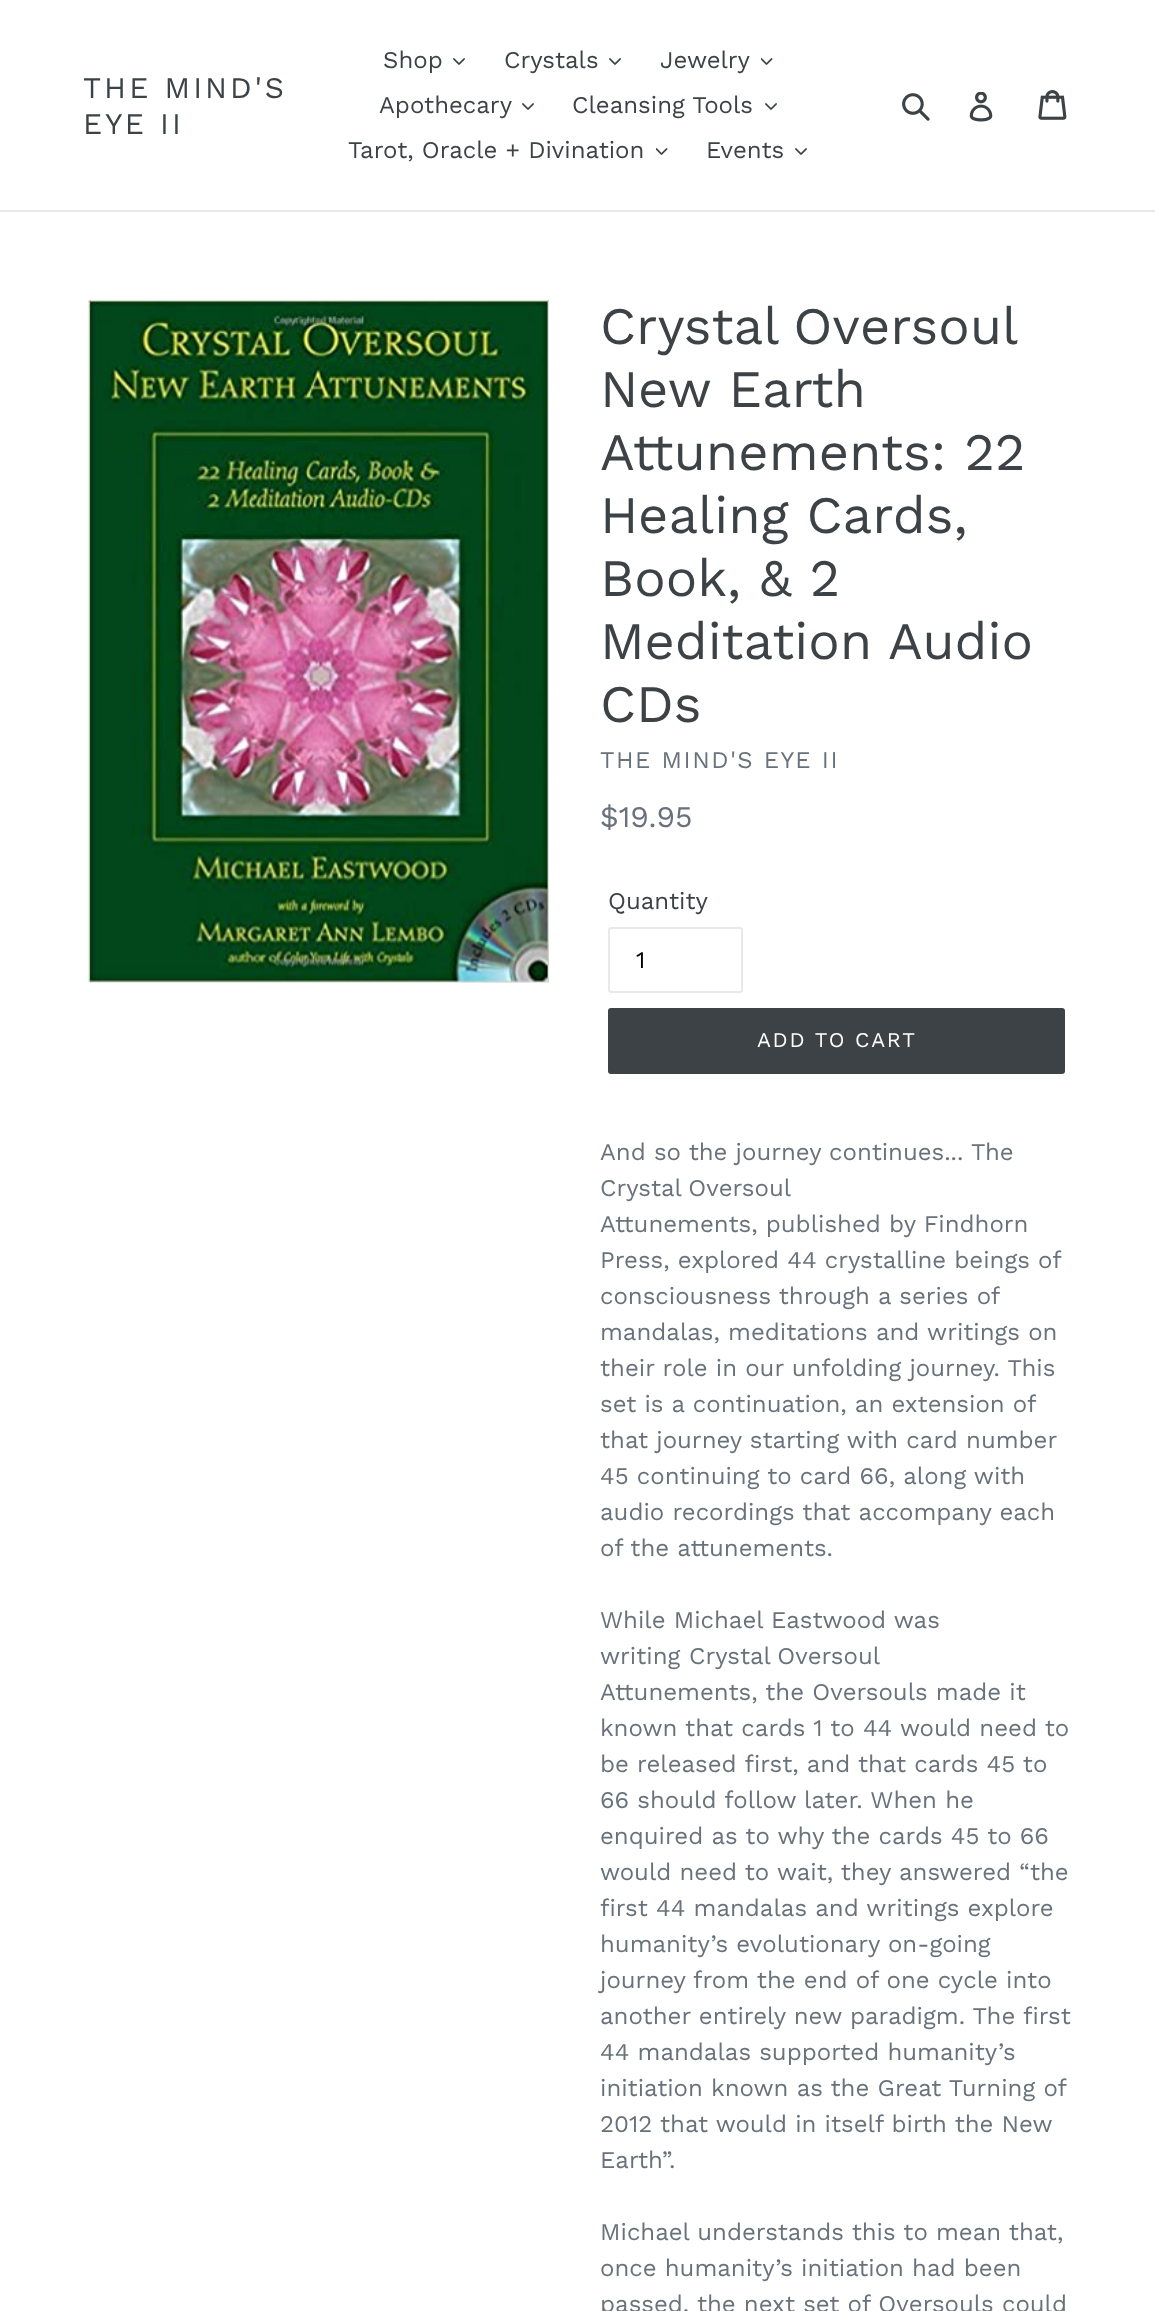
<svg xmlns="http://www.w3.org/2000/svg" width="1155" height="2311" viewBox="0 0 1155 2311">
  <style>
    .t1 { font: 30px Work Sans; letter-spacing: 3px; fill: #3d4246; }
    .t2 { font: 24px Work Sans; fill: #3d4246; }
    .t3 { font: 52.5px Work Sans; fill: #3d4246; }
    .t4 { font: 24px Work Sans; letter-spacing: 1.5px; fill: #69727b; }
    .t5 { font: 30px Work Sans; fill: #69727b; }
    .t6 { font: 24px Work Sans; fill: #000; }
    .t7 { font: 21px Work Sans; letter-spacing: 1.75px; fill: #fff; }
    .t8 { font: 24px Work Sans; fill: #69727b; }
  </style>
  <rect width="100%" height="100%" fill="#fff"/>
  <rect x="0" y="210" width="1155" height="2" fill="#e8e9eb"/>
  <text x="83" y="98" class="t1">THE MIND'S</text>
  <text x="83" y="134" class="t1">EYE II</text>
  <text x="383" y="68" class="t2">Shop</text>
  <image x="453" y="58" width="12" height="7" href="images/1.png"/>
  <text x="504" y="68" class="t2">Crystals</text>
  <image x="609" y="58" width="12" height="7" href="images/1.png"/>
  <text x="660" y="68" class="t2">Jewelry</text>
  <image x="761" y="58" width="12" height="7" href="images/2.png"/>
  <text x="379" y="113" class="t2">Apothecary</text>
  <image x="522" y="103" width="12" height="7" href="images/1.png"/>
  <text x="572" y="113" class="t2">Cleansing Tools</text>
  <image x="765" y="103" width="12" height="7" href="images/1.png"/>
  <text x="348" y="158" class="t2">Tarot, Oracle + Divination</text>
  <image x="656" y="148" width="12" height="7" href="images/2.png"/>
  <text x="706" y="158" class="t2">Events</text>
  <image x="795" y="148" width="12" height="7" href="images/1.png"/>
  <image x="902" y="93" width="28" height="28" href="images/3.png"/>
  <image x="969" y="92" width="24" height="30" href="images/4.png"/>
  <image x="1038" y="90" width="29" height="30" href="images/5.png"/>
  <image x="88" y="300" width="461" height="683" href="images/6.png"/>
  <text x="600" y="344" word-spacing="-2" class="t3">Crystal Oversoul</text>
  <text x="600" y="407" class="t3">New Earth</text>
  <text x="600" y="470" class="t3">Attunements: 22</text>
  <text x="600" y="533" class="t3">Healing Cards,</text>
  <text x="600" y="596" class="t3">Book, &amp; 2</text>
  <text x="600" y="659" class="t3">Meditation Audio</text>
  <text x="600" y="722" class="t3">CDs</text>
  <text x="600" y="768" class="t4">THE MIND'S EYE II</text>
  <text x="600" y="827" class="t5">$19.95</text>
  <text x="608" y="909" class="t2">Quantity</text>
  <rect x="609" y="928" width="133" height="64" rx="2" fill="none" stroke="#e8e9eb" stroke-width="2"/>
  <text x="636" y="968" class="t6">1</text>
  <rect x="608" y="1008" width="457" height="66" rx="3" fill="#3d4246"/>
  <text x="757" y="1047" class="t7">ADD TO CART</text>
  <text x="600" y="1160" class="t8">And so the journey continues... The</text>
  <text x="600" y="1196" word-spacing="-1" class="t8">Crystal Oversoul</text>
  <text x="600" y="1232" class="t8">Attunements, published by Findhorn</text>
  <text x="600" y="1268" class="t8">Press, explored 44 crystalline beings of</text>
  <text x="600" y="1304" class="t8">consciousness through a series of</text>
  <text x="600" y="1340" class="t8">mandalas, meditations and writings on</text>
  <text x="600" y="1376" class="t8">their role in our unfolding journey. This</text>
  <text x="600" y="1412" class="t8">set is a continuation, an extension of</text>
  <text x="600" y="1448" class="t8">that journey starting with card number</text>
  <text x="600" y="1484" class="t8">45 continuing to card 66, along with</text>
  <text x="600" y="1520" class="t8">audio recordings that accompany each</text>
  <text x="600" y="1556" class="t8">of the attunements.</text>
  <text x="600" y="1628" class="t8">While Michael Eastwood was</text>
  <text x="600" y="1664" class="t8">writing</text>
  <text x="689" y="1664" word-spacing="-1" class="t8">Crystal Oversoul</text>
  <text x="600" y="1700" class="t8">Attunements, the Oversouls made it</text>
  <text x="600" y="1736" class="t8">known that cards 1 to 44 would need to</text>
  <text x="600" y="1772" class="t8">be released first, and that cards 45 to</text>
  <text x="600" y="1808" class="t8">66 should follow later. When he</text>
  <text x="600" y="1844" class="t8">enquired as to why the cards 45 to 66</text>
  <text x="600" y="1880" class="t8">would need to wait, they answered “the</text>
  <text x="600" y="1916" class="t8">first 44 mandalas and writings explore</text>
  <text x="600" y="1952" class="t8">humanity’s evolutionary on-going</text>
  <text x="600" y="1988" class="t8">journey from the end of one cycle into</text>
  <text x="600" y="2024" class="t8">another entirely new paradigm. The first</text>
  <text x="600" y="2060" class="t8">44 mandalas supported humanity’s</text>
  <text x="600" y="2096" class="t8">initiation known as the Great Turning of</text>
  <text x="600" y="2132" class="t8">2012 that would in itself birth the New</text>
  <text x="600" y="2168" class="t8">Earth”.</text>
  <text x="600" y="2240" class="t8">Michael understands this to mean that,</text>
  <text x="600" y="2276" class="t8">once humanity’s initiation had been</text>
  <text x="600" y="2312" class="t8">passed, the next set of Oversouls could</text>
</svg>
